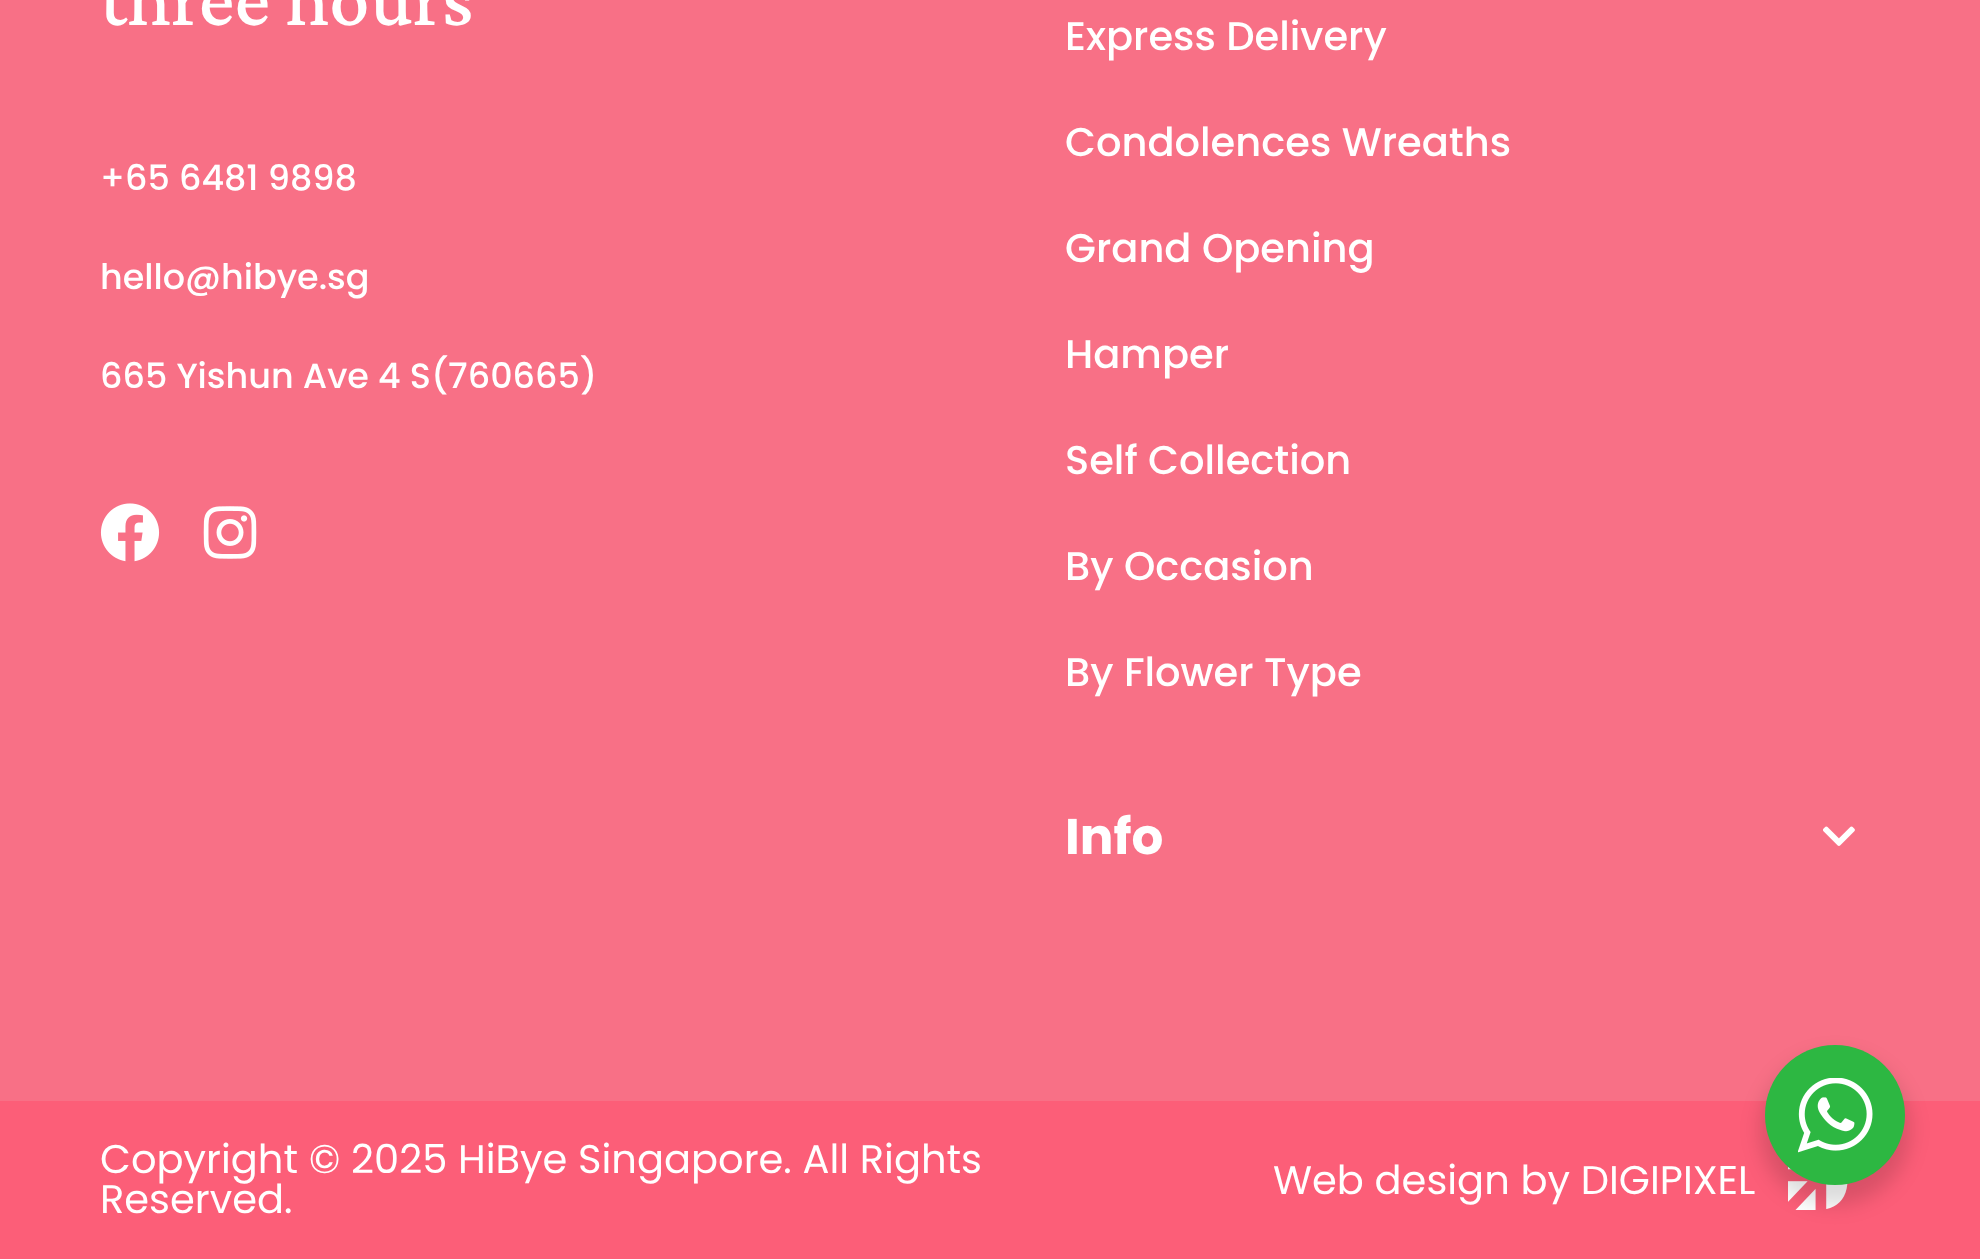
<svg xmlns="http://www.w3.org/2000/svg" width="1980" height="1259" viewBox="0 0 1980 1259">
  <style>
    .t1 { font: 500 80px Crimson Pro; fill: #fff; }
    .t2 { font: 500 35px Poppins; fill: #fff; }
    .t3 { font: 500 40px Poppins; fill: #fff; }
    .t4 { font: bold 50px Poppins; fill: #fff; }
    .t5 { font: 40px Poppins; fill: #fff; }
  </style>
  <rect width="100%" height="100%" fill="#f87086"/>
  <text x="100" y="25" class="t1">three hours</text>
  <text x="100" y="190" class="t2">+65 6481 9898</text>
  <text x="100" y="289" class="t2">hello@hibye.sg</text>
  <text x="100" y="388" class="t2">665 Yishun Ave 4 S(760665)</text>
  <image x="100" y="503" width="60" height="59" href="images/1.png"/>
  <image x="203" y="506" width="54" height="53" href="images/2.png"/>
  <text x="1065" y="50" class="t3">Express Delivery</text>
  <text x="1065" y="156" class="t3">Condolences Wreaths</text>
  <text x="1065" y="262" class="t3">Grand Opening</text>
  <text x="1065" y="368" class="t3">Hamper</text>
  <text x="1065" y="474" class="t3">Self Collection</text>
  <text x="1065" y="580" class="t3">By Occasion</text>
  <text x="1065" y="686" class="t3">By Flower Type</text>
  <text x="1065" y="854" class="t4">Info</text>
  <image x="1823" y="826" width="32" height="20" href="images/3.png"/>
  <rect x="0" y="1101" width="1980" height="158" fill="#fc5e78"/>
  <text x="100" y="1173" class="t5">Copyright © 2025 HiBye Singapore. All Rights</text>
  <text x="100" y="1213" class="t5">Reserved.</text>
  <text x="1273" y="1194" class="t5">Web design by DIGIPIXEL</text>
  <image x="1788" y="1166" width="60" height="44" href="images/4.png"/>
  <rect x="1760" y="1055" width="150" height="150" rx="75" fill="#00000024" filter="blur(10px)"/>
  <circle cx="1835" cy="1115" r="70" fill="#2db742"/>
  <image x="1798" y="1078" width="75" height="75" href="images/5.png"/>
</svg>
